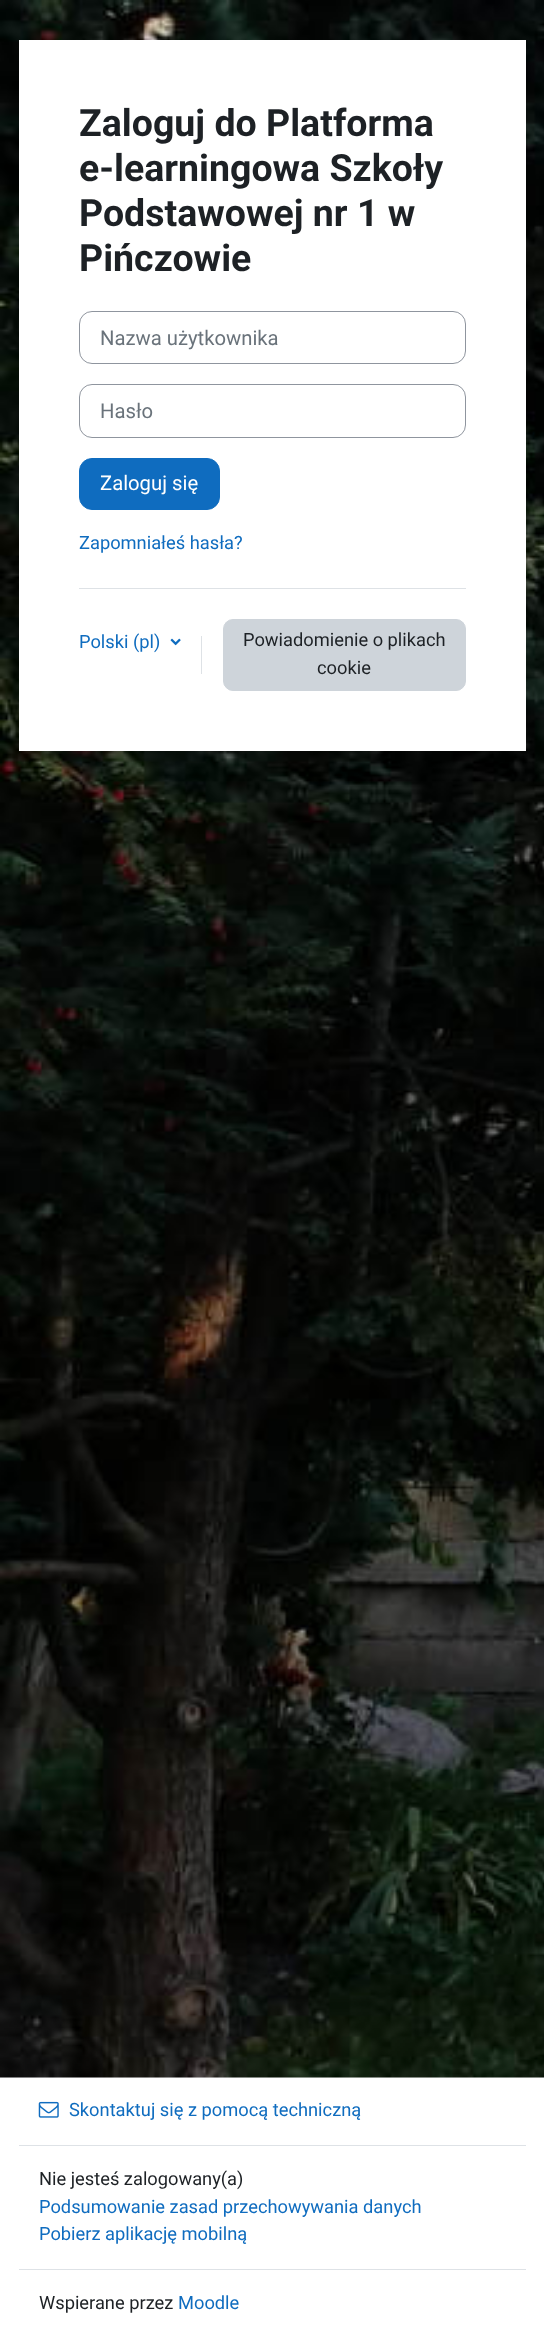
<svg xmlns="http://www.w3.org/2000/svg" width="544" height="2337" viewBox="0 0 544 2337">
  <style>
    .t1 { font: bold 37.5px Roboto; fill: #1d2125; }
    .t2 { font: 20.25px Roboto; fill: #6a737b; }
    .t3 { font: 20.25px Roboto; fill: #fff; }
    .t4 { font: 18.3px Roboto; fill: #0f6cbf; }
    .t5 { font: 18.3px Roboto; fill: #1d2125; }
  </style>
  <defs>
    <clipPath id="clip1"><rect x="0" y="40" width="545" height="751"/></clipPath>
  </defs>
  <rect width="100%" height="100%" fill="#fff"/>
  <rect x="0" y="2077" width="544" height="1" fill="#f8f9fa"/>
  <image x="0" y="0" width="544" height="2078" href="images/1.png"/>
  <g clip-path="url(#clip1)">
    <rect x="19" y="50" width="507" height="711" fill="#00000026" filter="blur(10px)"/>
  </g>
  <rect x="19" y="40" width="507" height="711" fill="#fff"/>
  <text x="79" y="136" class="t1">Zaloguj do Platforma</text>
  <text x="79" y="181" class="t1">e-learningowa Szkoły</text>
  <text x="79" y="226" class="t1">Podstawowej nr 1 w</text>
  <text x="79" y="271" class="t1">Pińczowie</text>
  <rect x="79.5" y="311.5" width="386" height="52" rx="12.5" fill="none" stroke="#8f959e"/>
  <text x="100" y="345" class="t2">Nazwa użytkownika</text>
  <rect x="79.5" y="384.5" width="386" height="53" rx="12.5" fill="none" stroke="#8f959e"/>
  <text x="100" y="418" class="t2">Hasło</text>
  <rect x="79.5" y="458.5" width="140" height="51" rx="12.5" fill="#0f6cbf" stroke="#0f6cbf"/>
  <text x="100" y="490" class="t3">Zaloguj się</text>
  <text x="79" y="549" class="t4">Zapomniałeś hasła?</text>
  <rect x="79" y="588" width="387" height="1" fill="#dee2e6"/>
  <text x="79" y="648" class="t4">Polski (pl)</text>
  <image x="170" y="638" width="11" height="8" href="images/2.png"/>
  <rect x="201" y="636" width="1" height="38" fill="#dee2e6"/>
  <rect x="223.5" y="619.5" width="242" height="71" rx="9.5" fill="#ced4da" stroke="#ced4da"/>
  <text x="243" y="646" class="t5">Powiadomienie o plikach</text>
  <text x="317" y="674" class="t5">cookie</text>
  <rect x="19" y="2145" width="507" height="1" fill="#dee2e6"/>
  <image x="38" y="2101" width="21" height="17" href="images/3.png"/>
  <text x="69" y="2116" class="t4">Skontaktuj się z pomocą techniczną</text>
  <rect x="19" y="2269" width="507" height="1" fill="#dee2e6"/>
  <text x="39" y="2185" class="t5">Nie jesteś zalogowany(a)</text>
  <text x="39" y="2213" class="t4">Podsumowanie zasad przechowywania danych</text>
  <text x="39" y="2240" class="t4">Pobierz aplikację mobilną</text>
  <text x="39" y="2309" class="t5">Wspierane przez</text>
  <text x="178" y="2309" class="t4">Moodle</text>
</svg>
